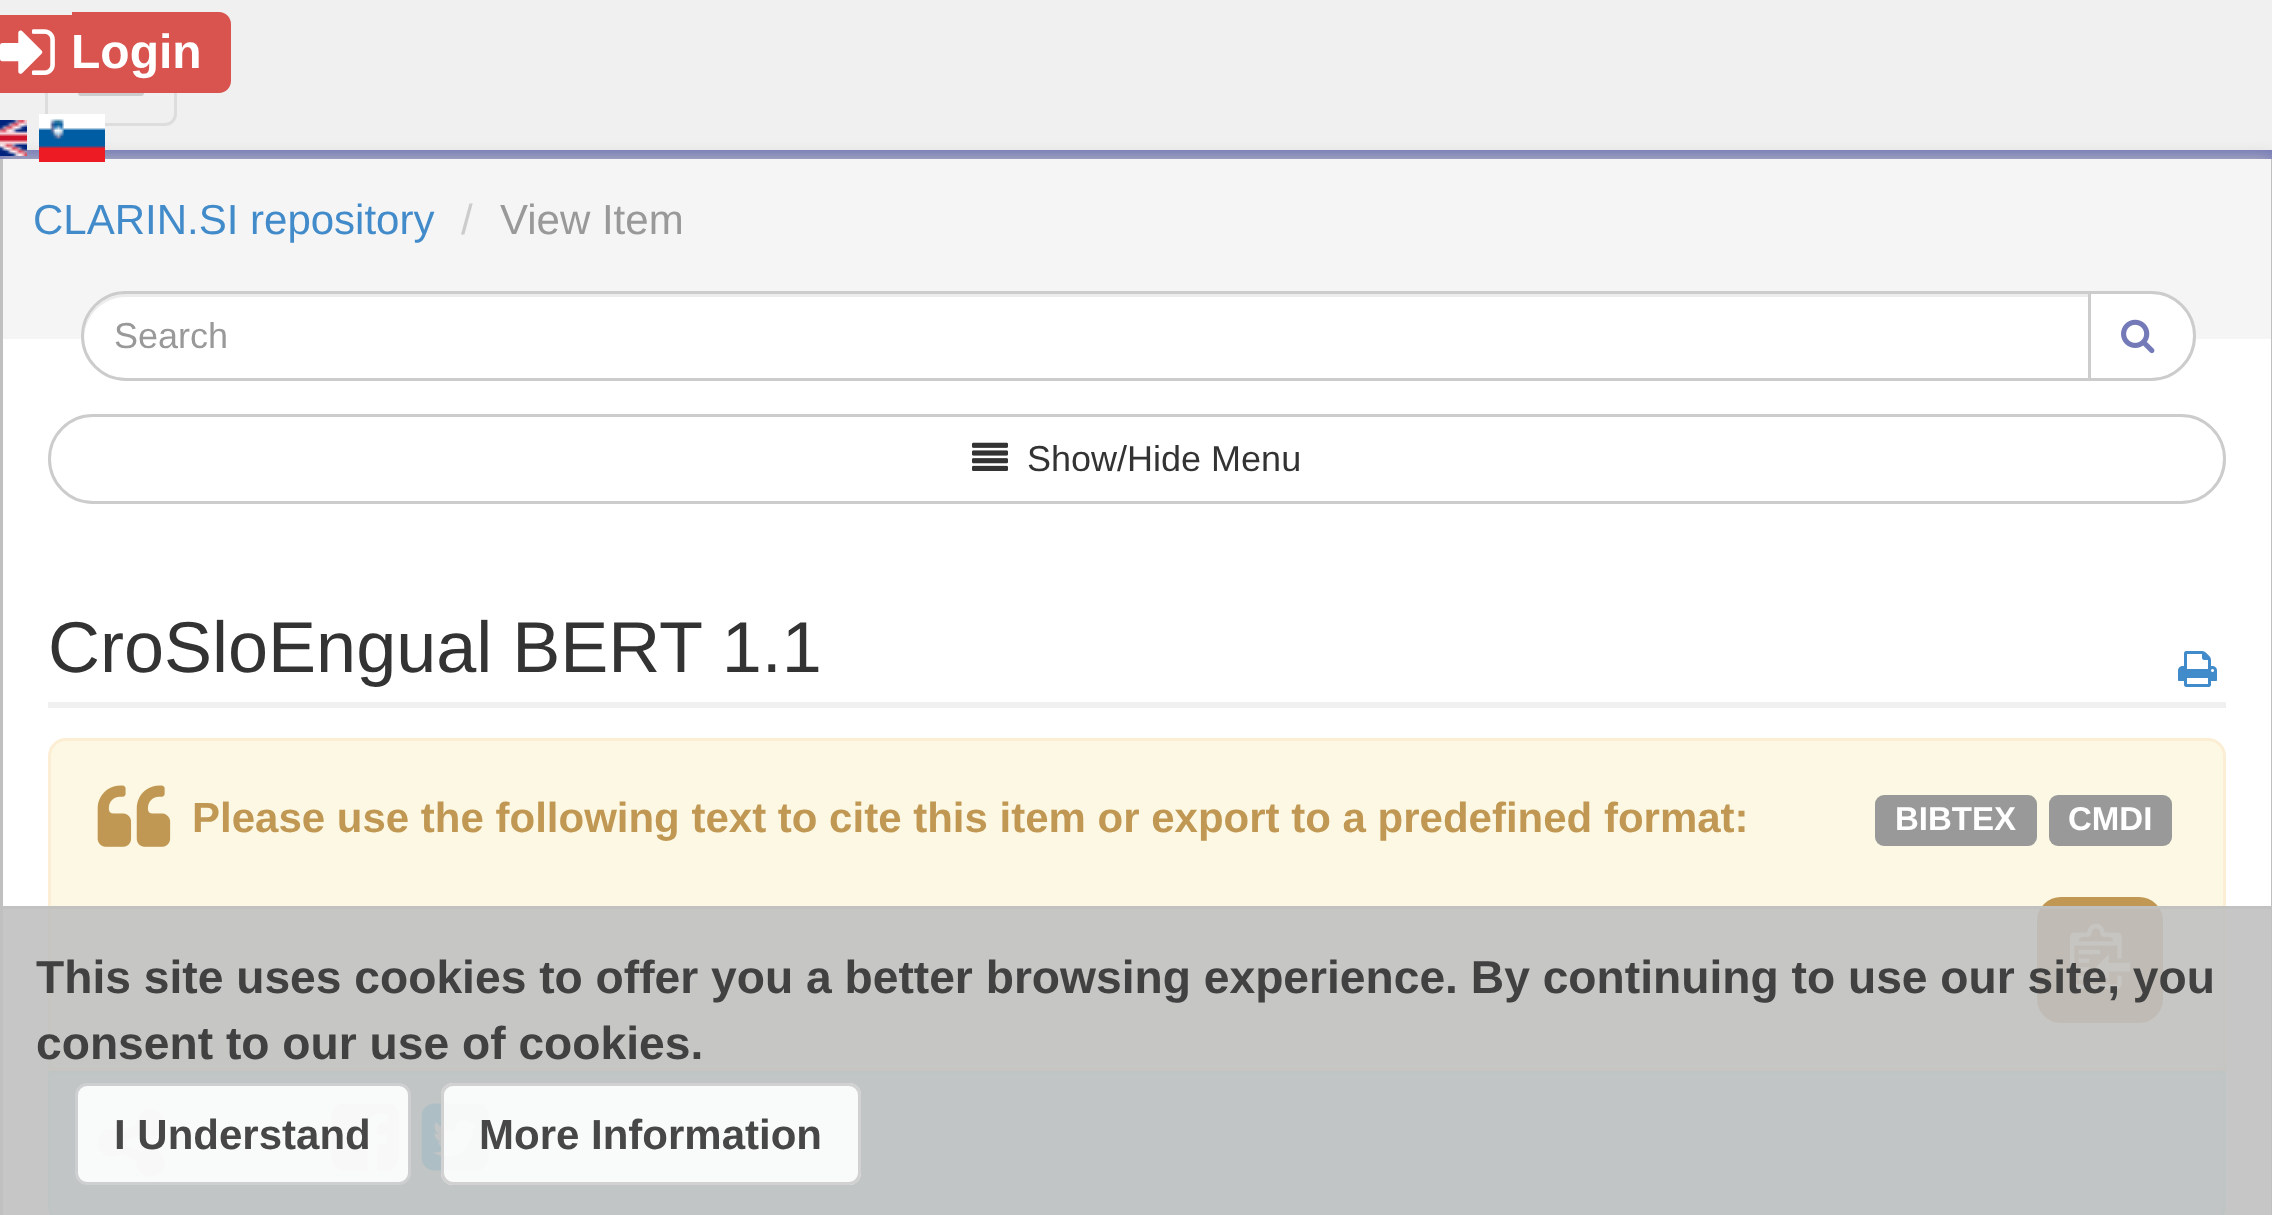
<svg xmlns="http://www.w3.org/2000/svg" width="2272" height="1215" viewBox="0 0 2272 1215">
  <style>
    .t1 { font: bold 48px Liberation Sans; fill: #fff; }
    .t2 { font: 42px Liberation Sans; fill: #428bca; }
    .t3 { font: 42px Liberation Sans; fill: #ccc; }
    .t4 { font: 42px Liberation Sans; fill: #999; }
    .t5 { font: 36px Liberation Sans; fill: #999; }
    .t6 { font: 36px Liberation Sans; fill: #333; }
    .t7 { font: 72px Liberation Sans; fill: #333; }
    .t8 { font: bold 42px Liberation Sans; fill: #c09853; }
    .t9 { font: bold 33px Liberation Sans; fill: #fff; }
    .t10 { font: bold 46.2px Liberation Sans; fill: #414141; }
    .t11 { font: bold 42px Liberation Sans; fill: #474747; }
  </style>
  <defs>
    <clipPath id="clip1"><rect x="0" y="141" width="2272" height="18"/></clipPath>
  </defs>
  <rect width="100%" height="100%" fill="#fff"/>
  <rect x="0" y="0" width="2272" height="150" fill="#f0f0f0"/>
  <rect x="0" y="150" width="2272" height="9" fill="#7479b8"/>
  <rect x="46.5" y="25.5" width="129" height="99" rx="10.5" fill="none" stroke="#ddd" stroke-width="3"/>
  <rect x="78" y="90" width="66" height="6" rx="3" fill="#ccc"/>
  <rect x="0" y="15" width="72" height="78" fill="#d9534f"/>
  <path d="M72 12H219C225.5 12 231 17.5 231 24V81C231 87.5 225.5 93 219 93H72Z" fill="#d9534f"/>
  <image x="0" y="29" width="55" height="46" href="images/1.png"/>
  <text x="71" y="68" class="t1">Login</text>
  <g clip-path="url(#clip1)">
    <rect x="0" y="159" width="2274" height="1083" fill="#c0c0c0" filter="blur(9px)"/>
  </g>
  <image x="0" y="120" width="27" height="36" href="images/2.png"/>
  <rect x="3" y="159" width="2268" height="180" fill="#f5f5f5"/>
  <image x="39" y="114" width="66" height="48" href="images/3.png"/>
  <rect x="2271" y="159" width="1" height="1056" fill="#c0c0c0"/>
  <rect x="0" y="159" width="3" height="1056" fill="#c0c0c0"/>
  <text x="33" y="234" class="t2">CLARIN.SI repository</text>
  <text x="461" y="234" class="t3">/</text>
  <text x="500" y="234" class="t4">View Item</text>
  <path d="M126 291H2091V381H126C101 381 81 361 81 336C81 311 101 291 126 291Z" fill="#fff"/>
  <path d="M126 297H2088V294H126C103 294 84 313 84 336V338C85 315 103 297 126 297Z" fill="#ececec"/>
  <path d="M126 292.5H2089.5V379.5H126C102 379.5 82.5 360 82.5 336C82.5 312 102 292.5 126 292.5Z" fill="none" stroke="#ccc" stroke-width="3"/>
  <text x="114" y="348" class="t5">Search</text>
  <path d="M2089.5 292.5H2151C2175 292.5 2194.5 312 2194.5 336C2194.5 360 2175 379.5 2151 379.5H2089.5Z" fill="#fff" stroke="#ccc" stroke-width="3"/>
  <image x="2121" y="319" width="34" height="35" href="images/4.png"/>
  <rect x="49.5" y="415.5" width="2175" height="87" rx="43.5" fill="none" stroke="#ccc" stroke-width="3"/>
  <image x="972" y="442" width="36" height="29" href="images/5.png"/>
  <text x="1027" y="471" class="t6">Show/Hide Menu</text>
  <rect x="48" y="702" width="2178" height="6" fill="#f0f0f0"/>
  <text x="48" y="672" class="t7">CroSloEngual BERT 1.1</text>
  <image x="2178" y="651" width="39" height="36" href="images/6.png"/>
  <path d="M66 739.5H2208C2217 739.5 2224.5 747 2224.5 756V1069.5H49.5V756C49.5 747 57 739.5 66 739.5Z" fill="#fcf8e3" stroke="#fbeed5" stroke-width="3"/>
  <image x="97" y="785" width="74" height="62" href="images/7.png"/>
  <text x="192" y="832" class="t8">Please use the following text to cite this item or export to a predefined format:</text>
  <rect x="1875" y="795" width="162" height="51" rx="9" fill="#999"/>
  <text x="1895" y="830" class="t9">BIBTEX</text>
  <rect x="2049" y="795" width="123" height="51" rx="9" fill="#999"/>
  <text x="2068" y="830" class="t9">CMDI</text>
  <rect x="2037" y="897" width="126" height="126" rx="24" fill="#c09853"/>
  <image x="2070" y="924" width="60" height="65" href="images/8.png"/>
  <path d="M49.5 1072.5H2224.5V1206C2224.5 1215 2217 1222.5 2208 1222.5H66C57 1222.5 49.5 1215 49.5 1206Z" fill="#d8edf6" stroke="#bbe8ef" stroke-width="3"/>
  <image x="97" y="1109" width="68" height="68" href="images/9.png"/>
  <image x="331" y="1103" width="68" height="68" href="images/10.png"/>
  <image x="421" y="1103" width="68" height="68" href="images/11.png"/>
  <rect x="3" y="906" width="2268" height="309" fill="#c0c0c0e6"/>
  <rect x="0" y="906" width="2272" height="3" fill="#c0c0c0e6"/>
  <text x="36" y="993" class="t10">This site uses cookies to offer you a better browsing experience. By continuing to use our site, you</text>
  <text x="36" y="1059" class="t10">consent to our use of cookies.</text>
  <rect x="76.5" y="1084.5" width="333" height="99" rx="10.5" fill="#ffffffe6" stroke="#cdcfd0" stroke-width="3"/>
  <text x="114" y="1149" class="t11">I Understand</text>
  <rect x="441" y="1083" width="420" height="102" rx="12" fill="#ffffffe6"/>
  <rect x="442.5" y="1084.5" width="417" height="99" rx="10.5" fill="none" stroke="#cccccce6" stroke-width="3"/>
  <text x="479" y="1149" class="t11">More Information</text>
</svg>
